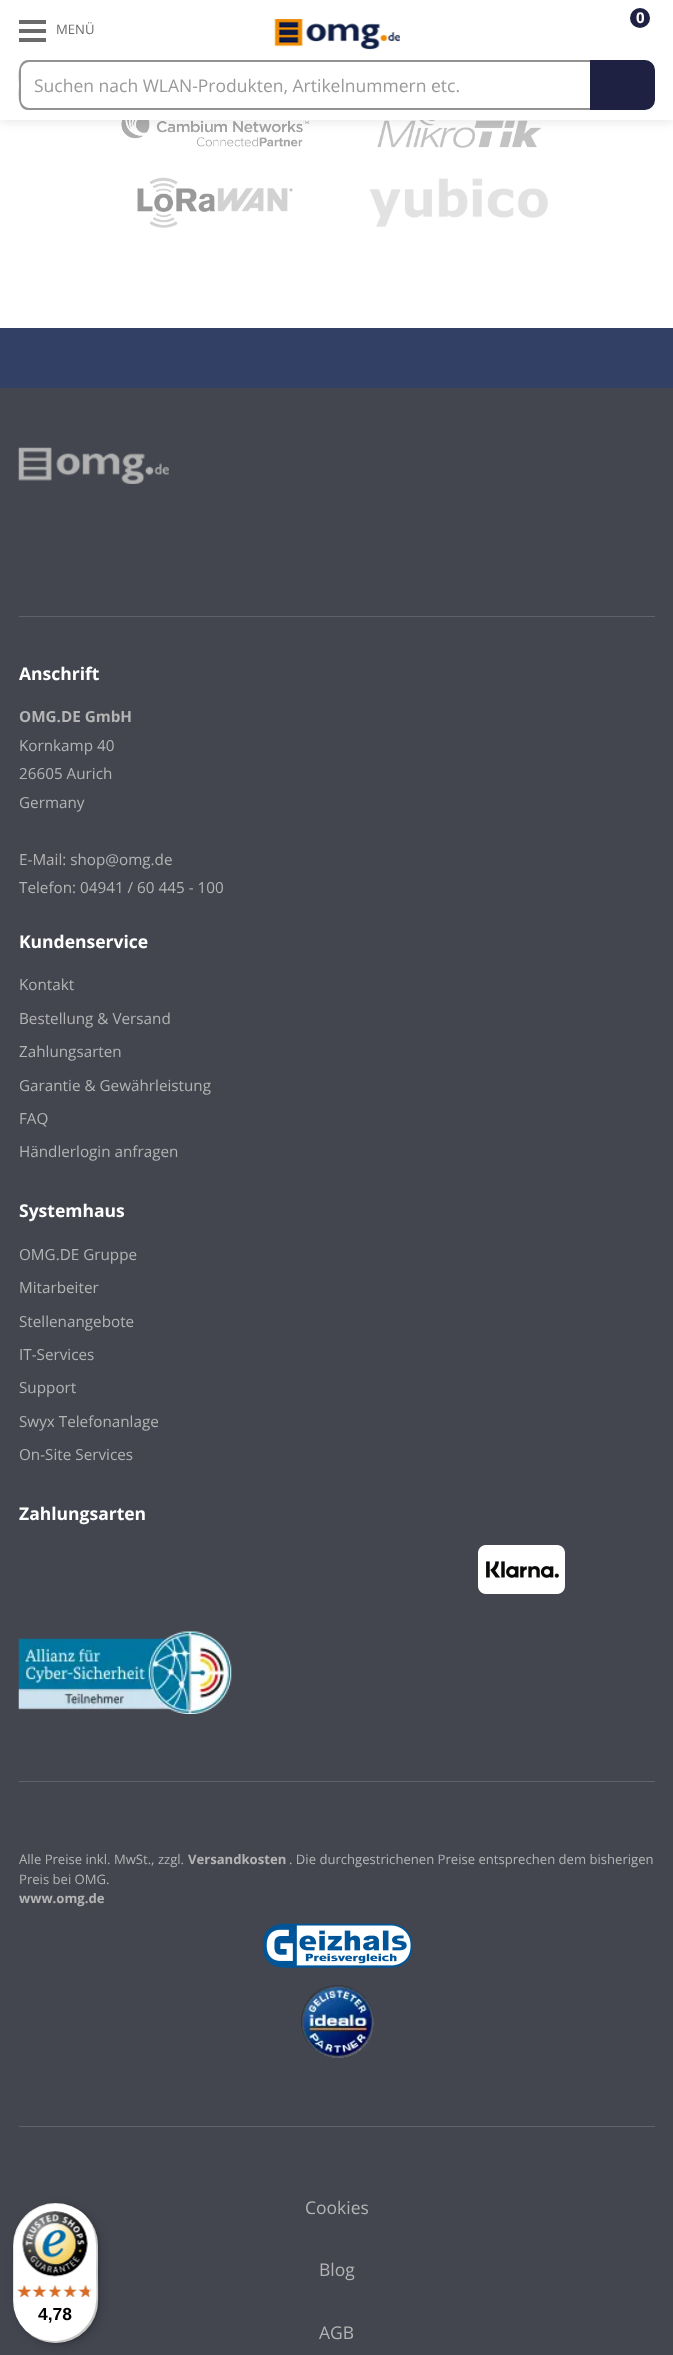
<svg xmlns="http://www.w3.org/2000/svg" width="673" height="2355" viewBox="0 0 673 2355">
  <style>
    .t1 { font: 13.1px Open Sans; fill: #6a6a6a; }
    .t2 { font: bold 15px Open Sans; fill: #fff; }
    .t3 { font: 17.5px Open Sans; fill: #999; }
    .t4 { font: bold 17.5px Open Sans; fill: #fff; }
    .t5 { font: bold 15.25px Open Sans; fill: #b4b4b4; }
    .t6 { font: 15.25px Open Sans; fill: #b4b4b4; }
    .t7 { font: 13.1px Open Sans; fill: #b4b4b4; }
    .t8 { font: bold 13.1px Open Sans; fill: #b4b4b4; }
    .t9 { font: 17.5px Open Sans; fill: #b4b4b4; }
    .t10 { font: bold 17.5px Liberation Sans; fill: #000; }
  </style>
  <rect width="100%" height="100%" fill="#fff"/>
  <image x="121" y="120" width="188" height="27" href="images/2.png"/>
  <image x="377" y="120" width="165" height="28" href="images/3.png"/>
  <rect x="0" y="3" width="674" height="120" fill="#00000014" filter="blur(5px)"/>
  <rect x="0" y="0" width="673" height="120" fill="#fff"/>
  <rect x="19" y="20" width="27" height="4" fill="#6a6a6a"/>
  <rect x="19" y="29" width="27" height="4" fill="#6a6a6a"/>
  <rect x="19" y="38" width="27" height="4" fill="#6a6a6a"/>
  <text x="56" y="34" class="t1">MENÜ</text>
  <image x="274" y="19" width="126" height="31" href="images/1.png"/>
  <circle cx="640" cy="18" r="10" fill="#1e2142"/>
  <text x="636" y="23" class="t2">0</text>
  <path d="M29 60H590V110H29C16 110 19 93 19 85C19 77 16 60 29 60ZM29 62H590V108H29C25 108 21 104 21 100V70C21 66 25 62 29 62Z" fill="#929292" fill-rule="evenodd"/>
  <text x="34" y="92" class="t3">Suchen nach WLAN-Produkten, Artikelnummern etc.</text>
  <path d="M591.5 61.5H645C649.5 61.5 653.5 65.5 653.5 70V100C653.5 104.5 649.5 108.5 645 108.5H591.5Z" fill="#1e2142" stroke="#1e2142" stroke-width="3"/>
  <image x="137" y="177" width="156" height="51" href="images/4.png"/>
  <image x="369" y="178" width="179" height="49" href="images/5.png"/>
  <rect x="0" y="328" width="673" height="60" fill="#314064"/>
  <rect x="0" y="388" width="673" height="1967" fill="#43464f"/>
  <image x="18" y="447" width="151" height="37" href="images/6.png"/>
  <rect x="19" y="616" width="636" height="1" fill="#5f6269"/>
  <text x="19" y="680" class="t4">Anschrift</text>
  <text x="19" y="722" class="t5">OMG.DE GmbH</text>
  <text x="19" y="751" class="t6">Kornkamp 40</text>
  <text x="19" y="779" class="t6">26605 Aurich</text>
  <text x="19" y="808" class="t6">Germany</text>
  <text x="19" y="865" class="t6">E-Mail: shop@omg.de</text>
  <text x="19" y="893" class="t6">Telefon: 04941 / 60 445 - 100</text>
  <text x="19" y="948" class="t4">Kundenservice</text>
  <text x="19" y="990" class="t6">Kontakt</text>
  <text x="19" y="1024" class="t6">Bestellung &amp; Versand</text>
  <text x="19" y="1057" class="t6">Zahlungsarten</text>
  <text x="19" y="1091" class="t6">Garantie &amp; Gewährleistung</text>
  <text x="19" y="1124" class="t6">FAQ</text>
  <text x="19" y="1157" class="t6">Händlerlogin anfragen</text>
  <text x="19" y="1217" class="t4">Systemhaus</text>
  <text x="19" y="1260" class="t6">OMG.DE Gruppe</text>
  <text x="19" y="1293" class="t6">Mitarbeiter</text>
  <text x="19" y="1327" class="t6">Stellenangebote</text>
  <text x="19" y="1360" class="t6">IT-Services</text>
  <text x="19" y="1393" class="t6">Support</text>
  <text x="19" y="1427" class="t6">Swyx Telefonanlage</text>
  <text x="19" y="1460" class="t6">On-Site Services</text>
  <text x="19" y="1520" class="t4">Zahlungsarten</text>
  <image x="478" y="1545" width="87" height="49" href="images/7.png"/>
  <image x="18" y="1631" width="214" height="83" href="images/8.png"/>
  <rect x="19" y="1781" width="636" height="1" fill="#5f6269"/>
  <text x="19" y="1864" class="t7">Alle Preise inkl. MwSt., zzgl.</text>
  <text x="188" y="1864" class="t8">Versandkosten</text>
  <text x="289" y="1864" class="t7">. Die durchgestrichenen Preise entsprechen dem bisherigen</text>
  <text x="19" y="1884" class="t7">Preis bei OMG.</text>
  <text x="19" y="1903" class="t8">www.omg.de</text>
  <image x="263" y="1923" width="150" height="45" href="images/9.png"/>
  <image x="301" y="1985" width="73" height="73" href="images/10.png"/>
  <rect x="19" y="2126" width="636" height="1" fill="#5f6269"/>
  <text x="305" y="2214" class="t9">Cookies</text>
  <text x="319" y="2276" class="t9">Blog</text>
  <text x="319" y="2339" class="t9">AGB</text>
  <rect x="16" y="2206" width="85" height="140" rx="42.5" fill="#00000026" filter="blur(5px)"/>
  <rect x="14" y="2204" width="85" height="140" rx="42.5" fill="#00000026" filter="blur(1px)"/>
  <rect x="13" y="2203" width="85" height="140" rx="42.5" fill="#fff"/>
  <path d="M56 2204C68 2204 78 2208 86 2216C65 2194 28 2201 16 2229C11 2241 13 2259 13 2273C13 2294 10 2315 26 2331C18 2323 14 2313 14 2301V2246C14 2223 33 2204 56 2204Z" fill="#0000001a"/>
  <path d="M25 2330C45 2352 83 2345 95 2317C100 2305 98 2287 98 2273C98 2252 102 2230 85 2215C99 2230 96 2252 96 2272C96 2285 98 2303 93 2315C81 2343 46 2349 25 2330Z" fill="#00000033"/>
  <path d="M25 2331C46 2351 83 2345 95 2317C100 2305 98 2287 98 2273C98 2252 101 2231 86 2215C93 2223 97 2233 97 2244V2299C97 2323 78 2342 54 2342C43 2342 33 2338 25 2331Z" fill="#32323233"/>
  <path d="M25 2331C46 2351 83 2345 95 2317C100 2305 98 2287 98 2273C98 2252 101 2231 86 2215C93 2223 97 2233 97 2244V2299C97 2323 78 2342 54 2342C43 2342 33 2338 25 2331Z" fill="#ffffff4d"/>
  <image x="22" y="2211" width="66" height="66" href="images/11.png"/>
  <image x="17" y="2285" width="14" height="13" href="images/12.png"/>
  <image x="34" y="2285" width="12" height="12" href="images/13.png"/>
  <image x="49" y="2285" width="12" height="13" href="images/14.png"/>
  <image x="64" y="2285" width="14" height="12" href="images/15.png"/>
  <image x="79" y="2285" width="14" height="13" href="images/16.png"/>
  <image x="17" y="2285" width="15" height="12" href="images/17.png"/>
  <image x="32" y="2285" width="15" height="12" href="images/18.png"/>
  <image x="48" y="2285" width="14" height="12" href="images/19.png"/>
  <image x="63" y="2285" width="14" height="12" href="images/20.png"/>
  <image x="78" y="2285" width="11" height="12" href="images/21.png"/>
  <text x="38" y="2320" class="t10">4,78</text>
</svg>
